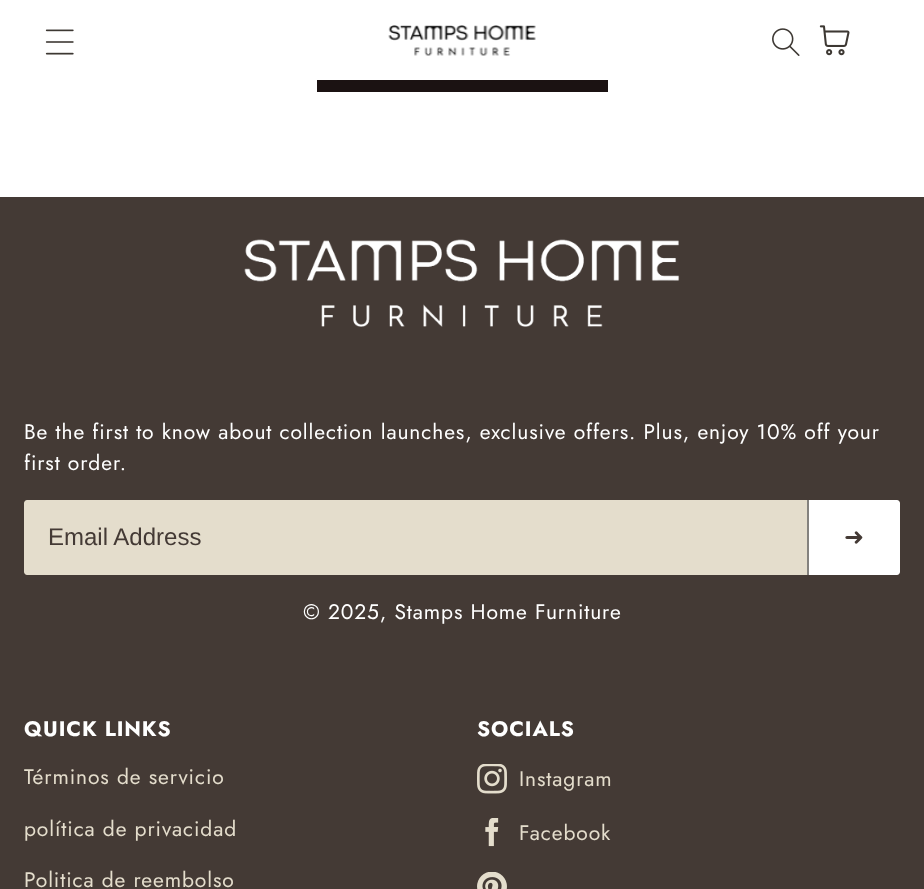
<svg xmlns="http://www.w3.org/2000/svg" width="924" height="889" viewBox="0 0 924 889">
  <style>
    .t1 { font: 21px Jost; letter-spacing: 0.9px; fill: #fff; }
    .t2 { font: 24px Liberation Sans; fill: #443a35; }
    .t3 { font: 24px DejaVu Sans; fill: #443a35; }
    .t4 { font: bold 21px Jost; letter-spacing: 0.9px; fill: #fff; }
    .t5 { font: 21px Jost; letter-spacing: 0.9px; fill: #e4ddcc; }
  </style>
  <rect width="100%" height="100%" fill="#fff"/>
  <image x="45" y="29" width="29" height="26" href="images/1.png"/>
  <image x="388" y="25" width="148" height="31" href="images/2.png"/>
  <image x="772" y="28" width="28" height="28" href="images/3.png"/>
  <image x="819" y="25" width="31" height="31" href="images/4.png"/>
  <rect x="317" y="80" width="291" height="12" fill="#1b1212"/>
  <rect x="0" y="197" width="924" height="692" fill="#443a35"/>
  <image x="244" y="239" width="436" height="88" href="images/5.png"/>
  <text x="24" y="439" class="t1">Be the first to know about collection launches, exclusive offers. Plus, enjoy 10% off your</text>
  <text x="24" y="470" class="t1">first order.</text>
  <path d="M27 500H809V575H27C25.5 575 24 573.5 24 572V503C24 501.5 25.5 500 27 500Z" fill="#e4ddcc"/>
  <text x="48" y="545" class="t2">Email Address</text>
  <path d="M809 500H897C898.5 500 900 501.5 900 503V572C900 573.5 898.5 575 897 575H809Z" fill="#fff"/>
  <rect x="807" y="500" width="2" height="75" fill="#84827e"/>
  <text x="844" y="545" class="t3">➜</text>
  <text x="303" y="619" class="t1">© 2025, Stamps Home Furniture</text>
  <text x="24" y="736" class="t4">QUICK LINKS</text>
  <text x="24" y="784" class="t5">Términos de servicio</text>
  <text x="24" y="836" class="t5">política de privacidad</text>
  <text x="24" y="887" class="t5">Politica de reembolso</text>
  <text x="477" y="736" class="t4">SOCIALS</text>
  <image x="477" y="764" width="30" height="30" href="images/6.png"/>
  <text x="519" y="786" class="t5">Instagram</text>
  <image x="485" y="818" width="14" height="29" href="images/7.png"/>
  <text x="519" y="840" class="t5">Facebook</text>
  <image x="477" y="872" width="30" height="17" href="images/8.png"/>
</svg>
